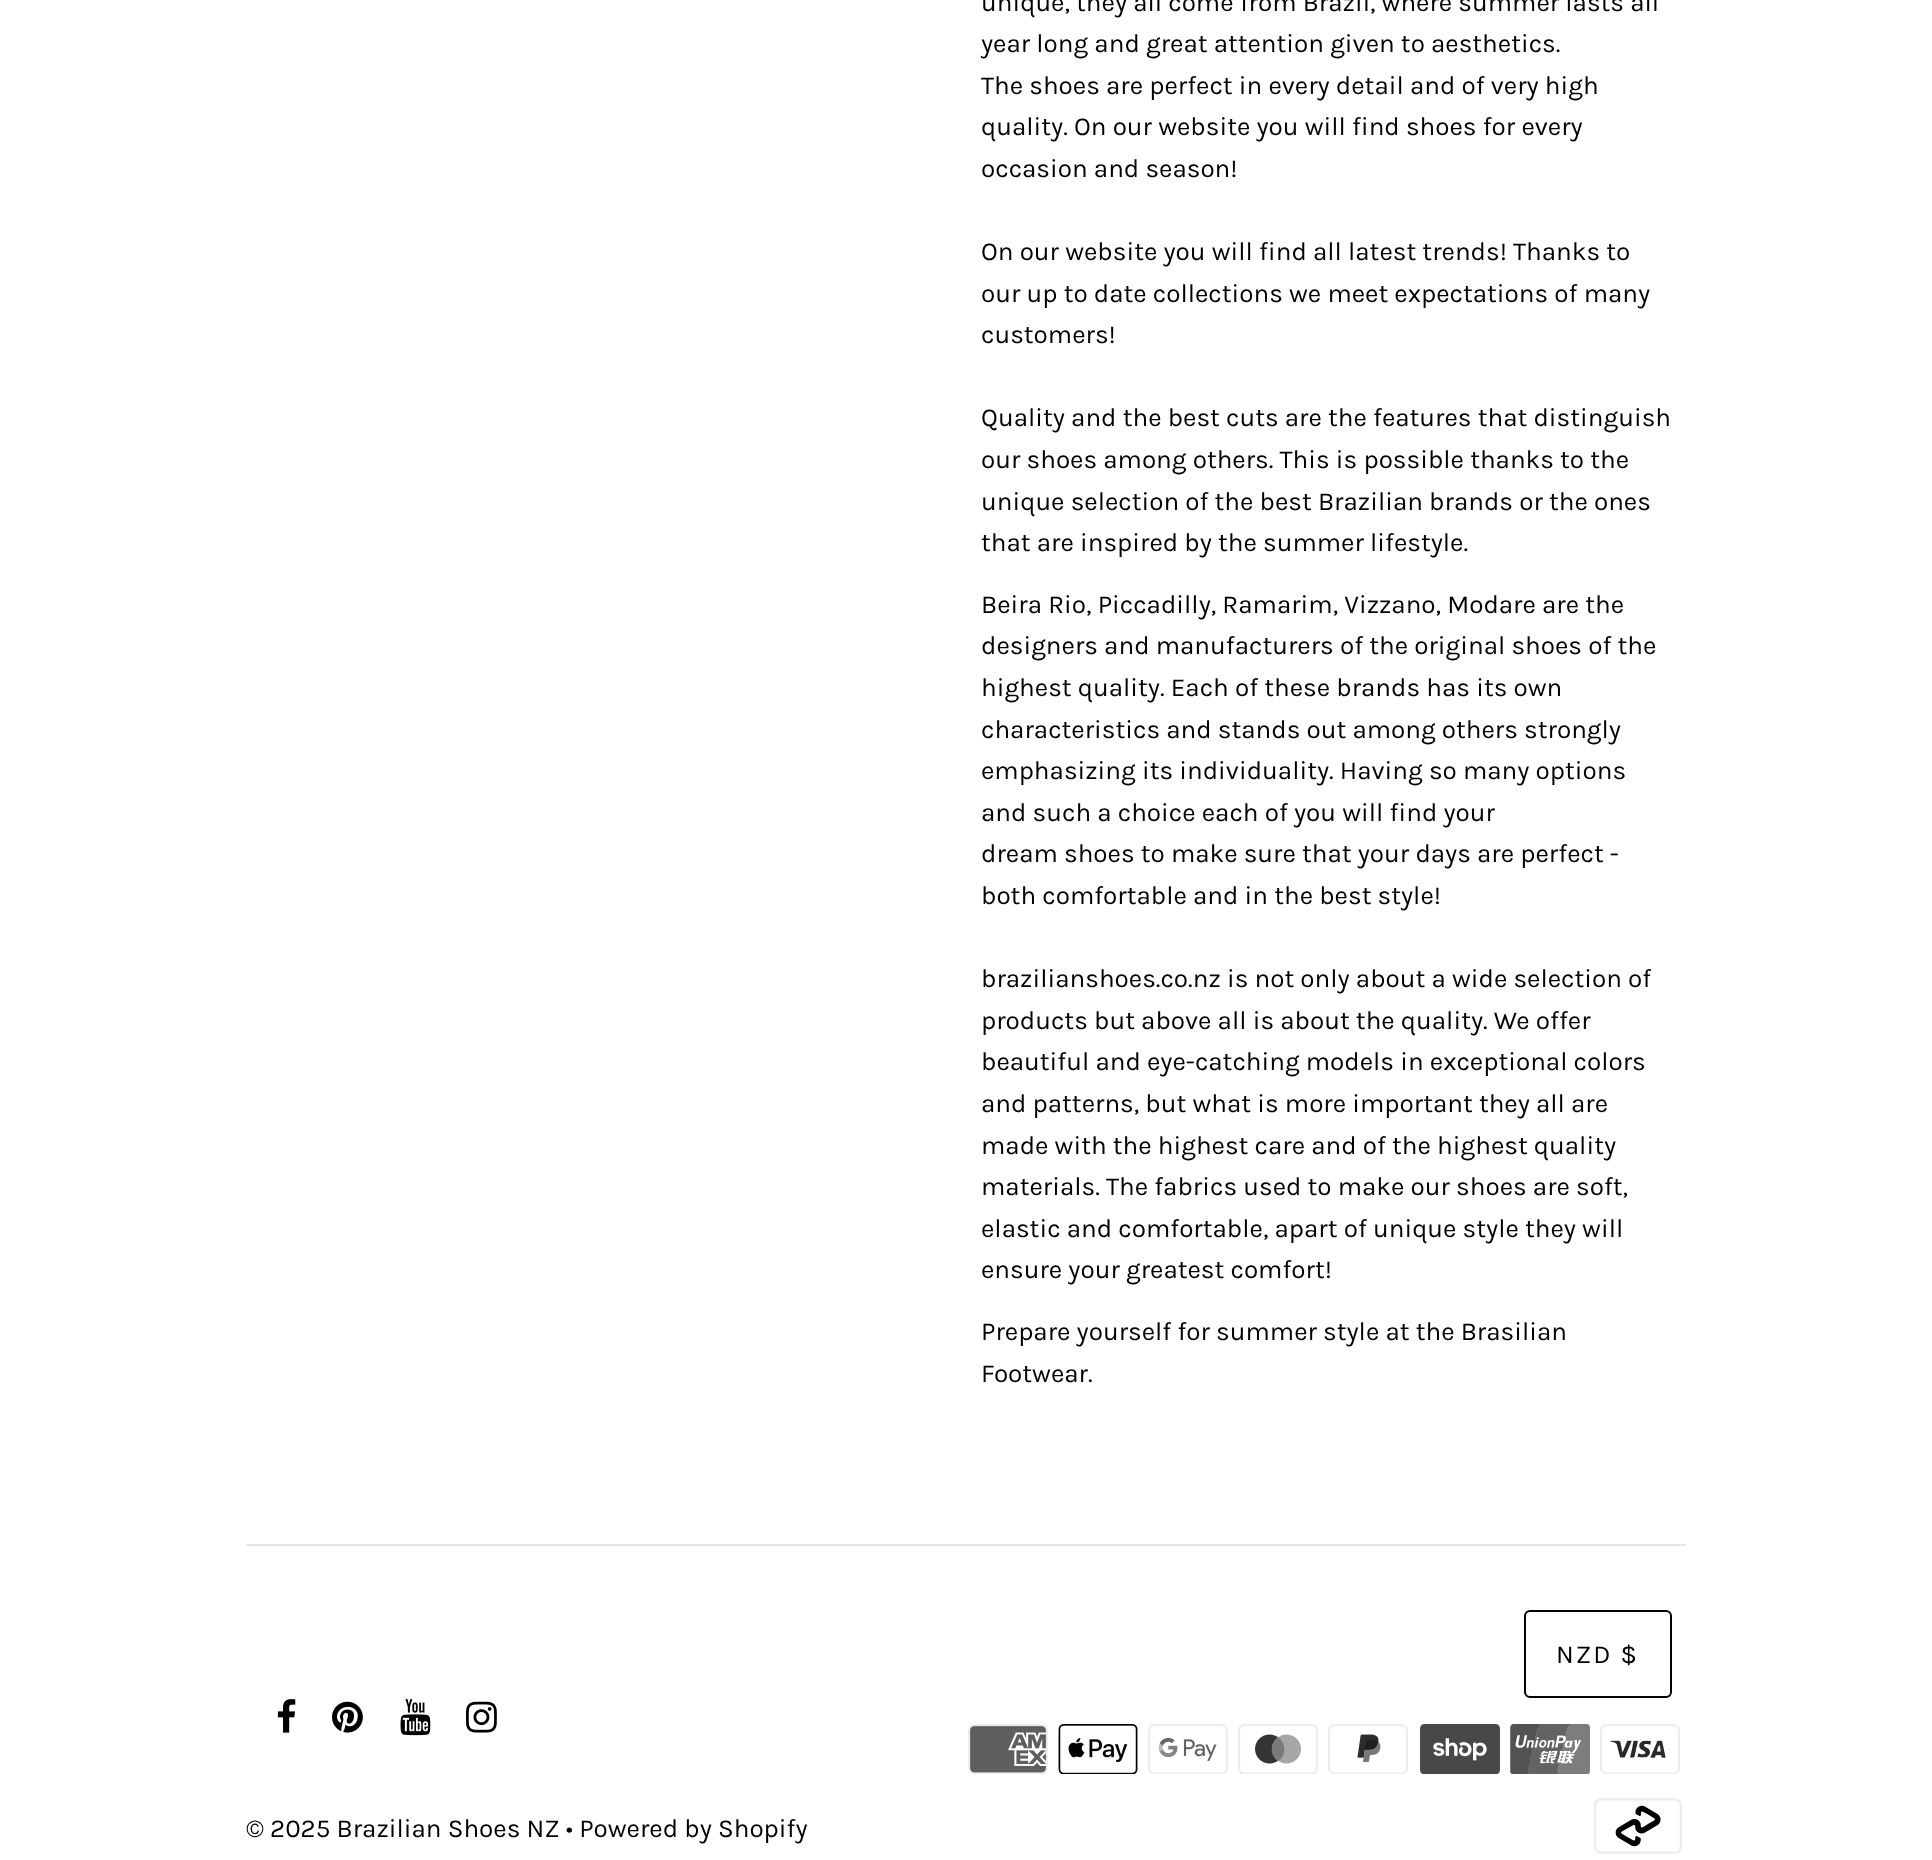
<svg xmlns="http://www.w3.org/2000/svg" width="1932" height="1860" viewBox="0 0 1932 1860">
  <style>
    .t1 { font: 26px Karla; fill: #000; }
    .t2 { font: 26px Karla; letter-spacing: 2px; fill: #000; }
  </style>
  <rect width="100%" height="100%" fill="#fff"/>
  <text x="981" y="11" class="t1">unique, they all come from Brazil, where summer lasts all</text>
  <text x="981" y="52" class="t1">year long and great attention given to aesthetics.</text>
  <text x="981" y="94" class="t1">The shoes are perfect in every detail and of very high</text>
  <text x="981" y="135" class="t1">quality. On our website you will find shoes for every</text>
  <text x="981" y="177" class="t1">occasion and season!</text>
  <text x="981" y="260" class="t1">On our website you will find all latest trends! Thanks to</text>
  <text x="981" y="302" class="t1">our up to date collections we meet expectations of many</text>
  <text x="981" y="343" class="t1">customers!</text>
  <text x="981" y="426" class="t1">Quality and the best cuts are the features that distinguish</text>
  <text x="981" y="468" class="t1">our shoes among others. This is possible thanks to the</text>
  <text x="981" y="510" class="t1">unique selection of the best Brazilian brands or the ones</text>
  <text x="981" y="551" class="t1">that are inspired by the summer lifestyle.</text>
  <text x="981" y="613" class="t1">Beira Rio, Piccadilly, Ramarim, Vizzano, Modare are the</text>
  <text x="981" y="654" class="t1">designers and manufacturers of the original shoes of the</text>
  <text x="981" y="696" class="t1">highest quality. Each of these brands has its own</text>
  <text x="981" y="738" class="t1">characteristics and stands out among others strongly</text>
  <text x="981" y="779" class="t1">emphasizing its individuality. Having so many options</text>
  <text x="981" y="821" class="t1">and such a choice each of you will find your</text>
  <text x="981" y="862" class="t1">dream shoes to make sure that your days are perfect -</text>
  <text x="981" y="904" class="t1">both comfortable and in the best style!</text>
  <text x="981" y="987" class="t1">brazilianshoes.co.nz is not only about a wide selection of</text>
  <text x="981" y="1029" class="t1">products but above all is about the quality. We offer</text>
  <text x="981" y="1070" class="t1">beautiful and eye-catching models in exceptional colors</text>
  <text x="981" y="1112" class="t1">and patterns, but what is more important they all are</text>
  <text x="981" y="1154" class="t1">made with the highest care and of the highest quality</text>
  <text x="981" y="1195" class="t1">materials. The fabrics used to make our shoes are soft,</text>
  <text x="981" y="1237" class="t1">elastic and comfortable, apart of unique style they will</text>
  <text x="981" y="1278" class="t1">ensure your greatest comfort!</text>
  <text x="981" y="1340" class="t1">Prepare yourself for summer style at the Brasilian</text>
  <text x="981" y="1382" class="t1">Footwear.</text>
  <rect x="246" y="1544" width="1440" height="2" fill="#e5e5e5"/>
  <rect x="1525" y="1611" width="146" height="86" rx="5" fill="none" stroke="#000" stroke-width="2"/>
  <text x="1556" y="1663" class="t2">NZD $</text>
  <image x="968" y="1724" width="80" height="50" href="images/1.png"/>
  <image x="1058" y="1724" width="80" height="50" href="images/2.png"/>
  <image x="1148" y="1724" width="80" height="50" href="images/3.png"/>
  <image x="1238" y="1724" width="80" height="50" href="images/4.png"/>
  <image x="1328" y="1724" width="80" height="50" href="images/5.png"/>
  <image x="1420" y="1724" width="80" height="50" href="images/6.png"/>
  <image x="1510" y="1724" width="80" height="50" href="images/7.png"/>
  <image x="1600" y="1724" width="80" height="50" href="images/8.png"/>
  <image x="1594" y="1798" width="88" height="56" href="images/9.png"/>
  <image x="277" y="1699" width="19" height="34" href="images/10.png"/>
  <image x="332" y="1701" width="31" height="32" href="images/11.png"/>
  <image x="400" y="1699" width="31" height="37" href="images/12.png"/>
  <image x="466" y="1701" width="31" height="32" href="images/13.png"/>
  <text x="246" y="1837" class="t1">© 2025 Brazilian Shoes NZ • Powered by Shopify</text>
</svg>
